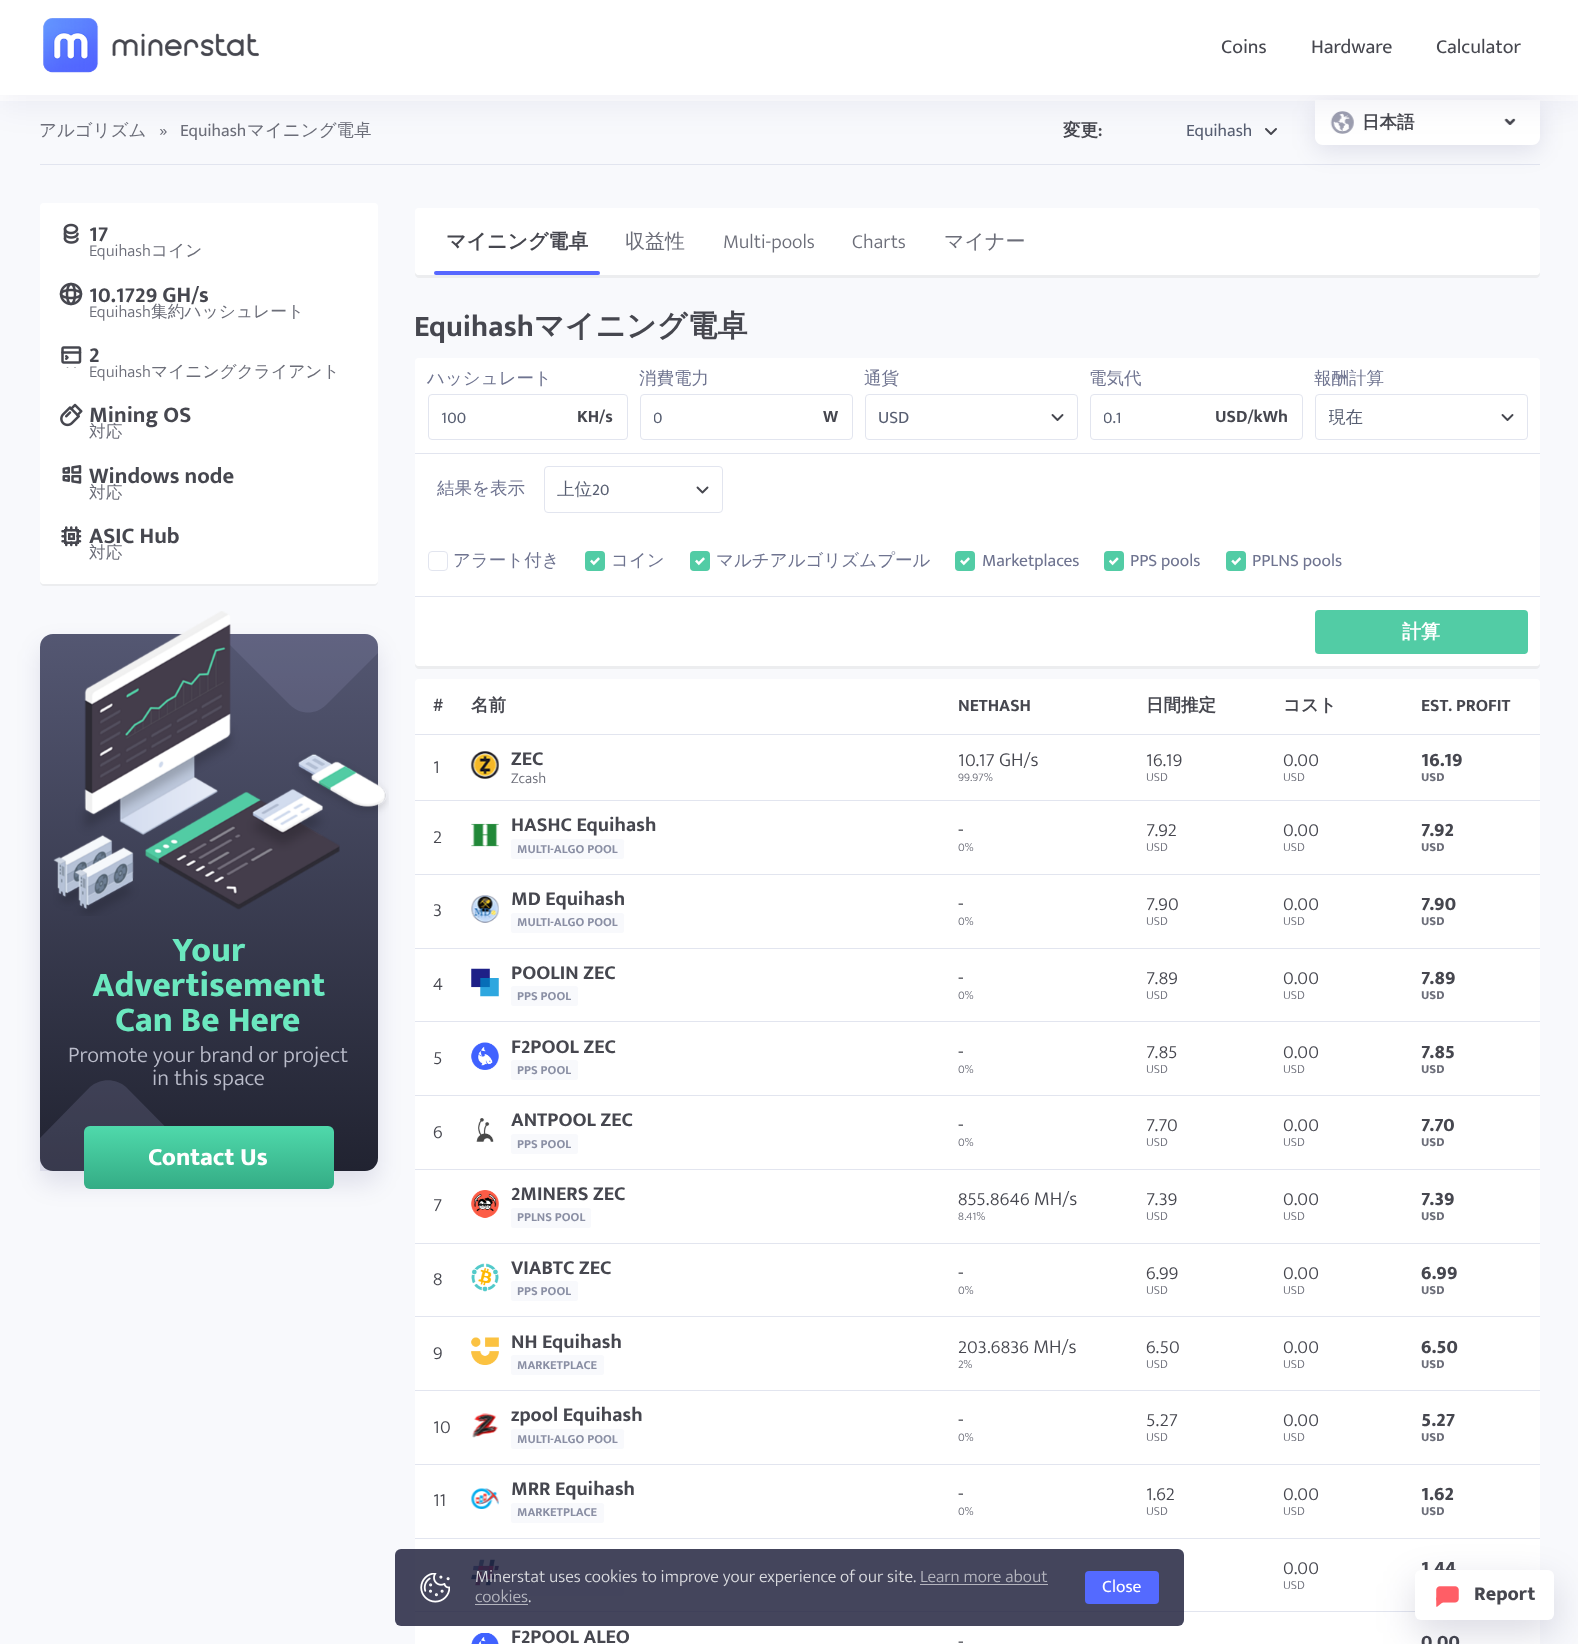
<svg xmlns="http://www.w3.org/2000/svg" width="1578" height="1644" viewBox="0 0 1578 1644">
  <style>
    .t1 { font: 20px Mukta Mahee; fill: #46474f; }
    .t2 { font: bold 17.5px WenQuanYi Zen Hei; fill: #46474f; }
    .t3 { font: 500 17.5px WenQuanYi Zen Hei; fill: #6c6e79; }
    .t4 { font: 17.5px Mukta Mahee; fill: #6c6e79; }
    .t5 { font: bold 17.5px Mukta Mahee; fill: #46474f; }
    .t6 { font: 17.5px Mukta Mahee; fill: #575e71; }
    .t7 { font: bold 22.5px Mukta Mahee; fill: #46474f; }
    .t8 { font: 300 16.75px Mukta Mahee; fill: #6c6e79; }
    .t9 { font: 500 16.75px WenQuanYi Zen Hei; fill: #6c6e79; }
    .t10 { font: 800 35px Mukta Mahee; fill: #6be8bf; }
    .t11 { font: 300 22.5px Mukta Mahee; fill: #babcca; }
    .t12 { font: 800 25px Mukta Mahee; fill: #fff; }
    .t13 { font: bold 20px WenQuanYi Zen Hei; fill: #46474f; }
    .t14 { font: 500 20px WenQuanYi Zen Hei; fill: #6c6e79; }
    .t15 { font: 300 20px Mukta Mahee; fill: #6c6e79; }
    .t16 { font: bold 30px Mukta Mahee; fill: #46474f; }
    .t17 { font: bold 30px WenQuanYi Zen Hei; fill: #46474f; }
    .t18 { font: 500 17.5px WenQuanYi Zen Hei; fill: #6f7490; }
    .t19 { font: 500 17.5px WenQuanYi Zen Hei; fill: #575e71; }
    .t20 { font: 17.5px Mukta Mahee; fill: #6f7490; }
    .t21 { font: bold 19px WenQuanYi Zen Hei; fill: #fff; }
    .t22 { font: 300 20px Mukta Mahee; fill: #46474f; }
    .t23 { font: bold 20px Mukta Mahee; fill: #46474f; }
    .t24 { font: 300 15px Mukta Mahee; fill: #6c6e79; }
    .t25 { font: 300 12.5px Mukta Mahee; fill: #6c6e79; }
    .t26 { font: 800 20px Mukta Mahee; fill: #46474f; }
    .t27 { font: 800 12.5px Mukta Mahee; fill: #6c6e79; }
    .t28 { font: bold 12.5px Mukta Mahee; fill: #8a8fa4; }
    .t29 { font: 300 17.5px Mukta Mahee; fill: #d9dade; }
    .t30 { font: 300 17.5px Mukta Mahee; fill: #b4b5be; }
    .t31 { font: 17.5px Mukta Mahee; fill: #fff; }
  </style>
  <defs>
    <linearGradient id="g1" gradientUnits="userSpaceOnUse" x1="209" y1="634" x2="209" y2="1171"><stop offset="0" stop-color="#545772"/><stop offset="1" stop-color="#212331"/></linearGradient>
    <linearGradient id="g2" gradientUnits="userSpaceOnUse" x1="209" y1="1126" x2="209" y2="1189"><stop offset="0" stop-color="#4fd9ab"/><stop offset="1" stop-color="#34ac85"/></linearGradient>
    <clipPath id="clip1"><rect x="654" y="403" width="135" height="28"/></clipPath>
    <clipPath id="clip2"><rect x="1104" y="403" width="135" height="28"/></clipPath>
    <clipPath id="clip3"><rect x="1329" y="403" width="160" height="28"/></clipPath>
  </defs>
  <rect width="100%" height="100%" fill="#fff"/>
  <rect x="0" y="101" width="1578" height="1543" fill="#f8f9fc"/>
  <rect x="40" y="164" width="1500" height="1" fill="#e2e5ef"/>
  <path d="M1266 129L1271 134L1276 129" fill="none" stroke="#46474f" stroke-width="1.9" stroke-linecap="round" stroke-linejoin="round"/>
  <rect x="1315" y="106" width="225" height="45" rx="8" fill="#0000501a" filter="blur(12.5px)"/>
  <path d="M1315 100H1540V137C1540 141.5 1536.5 145 1532 145H1323C1318.5 145 1315 141.5 1315 137Z" fill="#fff"/>
  <image x="1330" y="111" width="24" height="23" href="images/2.png"/>
  <image x="1504" y="118" width="12" height="7" href="images/3.png"/>
  <rect x="0" y="13" width="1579" height="95" fill="#0000640d" filter="blur(15.5px)"/>
  <rect x="0" y="0" width="1578" height="95" fill="#fff"/>
  <image x="43" y="18" width="216" height="55" href="images/1.png"/>
  <text x="1221" y="53" class="t1">Coins</text>
  <text x="1311" y="53" class="t1">Hardware</text>
  <text x="1436" y="53" class="t1">Calculator</text>
  <text x="1362" y="128" class="t2">日本語</text>
  <text x="39" y="136" class="t3">アルゴリズム</text>
  <text x="159" y="136" class="t4">»</text>
  <text x="180" y="136" class="t4">Equihash</text>
  <text x="247" y="136" class="t3">マイニング電卓</text>
  <text x="1063" y="136" class="t2">変更</text>
  <text x="1098" y="136" class="t5">:</text>
  <text x="1186" y="136" class="t6">Equihash</text>
  <path d="M40 580V582C40 584 42 586 44 586H374C376 586 378 584 378 582V209V207V580C378 582 376 584 374 584H44C42 584 40 582 40 580Z" fill="#ecedef"/>
  <rect x="40" y="203" width="338" height="381" rx="4" fill="#fff"/>
  <image x="63" y="223" width="16" height="21" href="images/4.png"/>
  <text x="89" y="241" class="t7">17</text>
  <text x="89" y="256" class="t8">Equihash</text>
  <text x="151" y="256" class="t9">コイン</text>
  <image x="59" y="282" width="24" height="24" href="images/5.png"/>
  <text x="89" y="302" class="t7">10.1729 GH/s</text>
  <text x="89" y="317" class="t8">Equihash</text>
  <text x="151" y="317" class="t9">集約ハッシュレート</text>
  <image x="61" y="346" width="21" height="22" href="images/6.png"/>
  <text x="89" y="362" class="t7">2</text>
  <text x="89" y="377" class="t8">Equihash</text>
  <text x="151" y="377" class="t9">マイニングクライアント</text>
  <image x="60" y="403" width="23" height="24" href="images/7.png"/>
  <text x="89" y="422" class="t7">Mining OS</text>
  <text x="89" y="437" class="t9">対応</text>
  <image x="62" y="465" width="20" height="19" href="images/8.png"/>
  <text x="89" y="483" class="t7">Windows node</text>
  <text x="89" y="498" class="t9">対応</text>
  <image x="61" y="526" width="21" height="21" href="images/9.png"/>
  <text x="89" y="543" class="t7">ASIC Hub</text>
  <text x="89" y="558" class="t9">対応</text>
  <path d="M415 662V665C415 667 417 669 419 669H1536C1538 669 1540 667 1540 665V662C1540 665 1538 666 1536 666H419C417 666 415 665 415 662Z" fill="#ecedef"/>
  <rect x="415" y="358" width="1125" height="308" rx="4" fill="#fff"/>
  <rect x="40" y="646" width="338" height="538" rx="13" fill="#0000501a" filter="blur(12.5px)"/>
  <rect x="40" y="634" width="338" height="537" rx="13" fill="url(#g1)"/>
  <path d="M378 653L326 705C316 715 300 715 290 705L219 634H365C372 634 378 640 378 647Z" fill="#9598be33"/>
  <image x="53" y="611" width="336" height="305" href="images/10.png"/>
  <path d="M126 1087L209 1171H40V1138L90 1087C100 1078 116 1078 126 1087Z" fill="#9598be33"/>
  <text x="172" y="961" class="t10">Your</text>
  <text x="92" y="996" class="t10">Advertisement</text>
  <text x="115" y="1031" class="t10">Can Be Here</text>
  <text x="68" y="1062" class="t11">Promote your brand or project</text>
  <text x="152" y="1085" class="t11">in this space</text>
  <rect x="84" y="1126" width="250" height="63" rx="6" fill="url(#g2)"/>
  <text x="148" y="1165" class="t12">Contact Us</text>
  <path d="M415 271V274C415 276 417 278 419 278H1536C1538 278 1540 276 1540 274V271C1540 273 1538 275 1536 275H419C417 275 415 273 415 271Z" fill="#ecedef"/>
  <rect x="415" y="208" width="1125" height="67" rx="4" fill="#fff"/>
  <text x="446" y="248" class="t13">マイニング電卓</text>
  <rect x="434" y="271" width="166" height="4" rx="2" fill="#5767ff"/>
  <text x="625" y="248" class="t14">収益性</text>
  <text x="723" y="248" class="t15">Multi-pools</text>
  <text x="852" y="248" class="t15">Charts</text>
  <text x="944" y="248" class="t14">マイナー</text>
  <text x="414" y="336" class="t16">Equihash</text>
  <text x="534" y="336" class="t17">マイニング電卓</text>
  <rect x="415" y="453" width="1125" height="1" fill="#e2e5ef"/>
  <text x="427" y="384" class="t18">ハッシュレート</text>
  <rect x="428.5" y="394.5" width="199" height="45" rx="3.5" fill="none" stroke="#e2e5ef"/>
  <text x="441" y="423" class="t6">100</text>
  <text x="577" y="422" class="t5">KH/s</text>
  <text x="639" y="384" class="t18">消費電力</text>
  <rect x="640.5" y="394.5" width="212" height="45" rx="3.5" fill="none" stroke="#e2e5ef"/>
  <g clip-path="url(#clip1)">
    <text x="653" y="423" class="t6">0</text>
  </g>
  <text x="823" y="422" class="t5">W</text>
  <text x="864" y="384" class="t18">通貨</text>
  <rect x="865.5" y="394.5" width="212" height="45" rx="3.5" fill="none" stroke="#e2e5ef"/>
  <path d="M1052.5 415L1057.5 420L1062.5 415" fill="none" stroke="#46474f" stroke-width="1.9" stroke-linecap="round" stroke-linejoin="round"/>
  <text x="878" y="423" class="t6">USD</text>
  <text x="1089" y="384" class="t18">電気代</text>
  <rect x="1090.5" y="394.5" width="212" height="45" rx="3.5" fill="none" stroke="#e2e5ef"/>
  <g clip-path="url(#clip2)">
    <text x="1103" y="423" class="t6">0.1</text>
  </g>
  <text x="1215" y="422" class="t5">USD/kWh</text>
  <text x="1314" y="384" class="t18">報酬計算</text>
  <rect x="1315.5" y="394.5" width="212" height="45" rx="3.5" fill="none" stroke="#e2e5ef"/>
  <path d="M1502.5 415L1507.5 420L1512.5 415" fill="none" stroke="#46474f" stroke-width="1.9" stroke-linecap="round" stroke-linejoin="round"/>
  <g clip-path="url(#clip3)">
    <text x="1328" y="423" class="t19">現在</text>
  </g>
  <text x="437" y="494" class="t18">結果を表示</text>
  <rect x="544.5" y="466.5" width="178" height="46" rx="3.5" fill="none" stroke="#e2e5ef"/>
  <path d="M697.5 487.5L702.5 492.5L707.5 487.5" fill="none" stroke="#46474f" stroke-width="1.9" stroke-linecap="round" stroke-linejoin="round"/>
  <text x="557" y="495" class="t19">上位</text>
  <text x="592" y="495" class="t6">20</text>
  <rect x="428.5" y="551.5" width="19" height="19" rx="3.5" fill="none" stroke="#e2e5ef"/>
  <text x="453" y="566" class="t18">アラート付き</text>
  <rect x="585.5" y="551.5" width="19" height="19" rx="3.5" fill="none" stroke="#e2e5ef"/>
  <rect x="585" y="551" width="20" height="20" rx="4" fill="#52cca5"/>
  <image x="590" y="557" width="10" height="9" href="images/11.png"/>
  <text x="611" y="566" class="t18">コイン</text>
  <rect x="690.5" y="551.5" width="19" height="19" rx="3.5" fill="none" stroke="#e2e5ef"/>
  <rect x="690" y="551" width="20" height="20" rx="4" fill="#52cca5"/>
  <image x="695" y="557" width="10" height="9" href="images/11.png"/>
  <text x="716" y="566" class="t18">マルチアルゴリズムプール</text>
  <rect x="955.5" y="551.5" width="19" height="19" rx="3.5" fill="none" stroke="#e2e5ef"/>
  <rect x="955" y="551" width="20" height="20" rx="4" fill="#52cca5"/>
  <image x="960" y="557" width="10" height="9" href="images/11.png"/>
  <text x="982" y="566" class="t20">Marketplaces</text>
  <rect x="1104.5" y="551.5" width="19" height="19" rx="3.5" fill="none" stroke="#e2e5ef"/>
  <rect x="1104" y="551" width="20" height="20" rx="4" fill="#52cca5"/>
  <image x="1109" y="557" width="10" height="9" href="images/12.png"/>
  <text x="1130" y="566" class="t20">PPS pools</text>
  <rect x="1226.5" y="551.5" width="19" height="19" rx="3.5" fill="none" stroke="#e2e5ef"/>
  <rect x="1226" y="551" width="20" height="20" rx="4" fill="#52cca5"/>
  <image x="1231" y="557" width="10" height="9" href="images/13.png"/>
  <text x="1252" y="566" class="t20">PPLNS pools</text>
  <rect x="415" y="596" width="1125" height="1" fill="#e2e5ef"/>
  <rect x="1315" y="610" width="213" height="44" rx="4" fill="#52cca5"/>
  <text x="1402" y="638" class="t21">計算</text>
  <rect x="415" y="679" width="1125" height="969" rx="4" fill="#fff"/>
  <rect x="415" y="734" width="1125" height="1" fill="#e2e5ef"/>
  <text x="433" y="711" class="t5">#</text>
  <text x="471" y="711" class="t2">名前</text>
  <text x="958" y="711" class="t5">NETHASH</text>
  <text x="1146" y="711" class="t2">日間推定</text>
  <text x="1283" y="711" class="t2">コスト</text>
  <text x="1421" y="711" class="t5">EST. PROFIT</text>
  <rect x="415" y="800" width="1125" height="1" fill="#e2e5ef"/>
  <text x="433" y="773" class="t22">1</text>
  <image x="470" y="751" width="29" height="28" href="images/14.png"/>
  <text x="511" y="765" class="t23">ZEC</text>
  <text x="511" y="783" class="t24">Zcash</text>
  <text x="958" y="766" class="t22">10.17 GH/s</text>
  <text x="958" y="781" class="t25">99.97%</text>
  <text x="1146" y="766" class="t22">16.19</text>
  <text x="1146" y="781" class="t25">USD</text>
  <text x="1283" y="766" class="t22">0.00</text>
  <text x="1283" y="781" class="t25">USD</text>
  <text x="1421" y="766" class="t26">16.19</text>
  <text x="1421" y="781" class="t27">USD</text>
  <rect x="415" y="874" width="1125" height="1" fill="#e2e5ef"/>
  <text x="433" y="843" class="t22">2</text>
  <image x="471" y="823" width="28" height="24" href="images/15.png"/>
  <text x="511" y="831" class="t23">HASHC Equihash</text>
  <rect x="511" y="839" width="113" height="20" rx="2.5" fill="#f8f9fc"/>
  <text x="517" y="853" class="t28">MULTI-ALGO POOL</text>
  <text x="958" y="836" class="t22">-</text>
  <text x="958" y="851" class="t25">0%</text>
  <text x="1146" y="836" class="t22">7.92</text>
  <text x="1146" y="851" class="t25">USD</text>
  <text x="1283" y="836" class="t22">0.00</text>
  <text x="1283" y="851" class="t25">USD</text>
  <text x="1421" y="836" class="t26">7.92</text>
  <text x="1421" y="851" class="t27">USD</text>
  <rect x="415" y="948" width="1125" height="1" fill="#e2e5ef"/>
  <text x="433" y="916" class="t22">3</text>
  <image x="471" y="895" width="28" height="28" href="images/16.png"/>
  <text x="511" y="905" class="t23">MD Equihash</text>
  <rect x="511" y="913" width="113" height="20" rx="2.5" fill="#f8f9fc"/>
  <text x="517" y="926" class="t28">MULTI-ALGO POOL</text>
  <text x="958" y="910" class="t22">-</text>
  <text x="958" y="925" class="t25">0%</text>
  <text x="1146" y="910" class="t22">7.90</text>
  <text x="1146" y="925" class="t25">USD</text>
  <text x="1283" y="910" class="t22">0.00</text>
  <text x="1283" y="925" class="t25">USD</text>
  <text x="1421" y="910" class="t26">7.90</text>
  <text x="1421" y="925" class="t27">USD</text>
  <rect x="415" y="1021" width="1125" height="1" fill="#e2e5ef"/>
  <text x="433" y="990" class="t22">4</text>
  <image x="471" y="968" width="28" height="29" href="images/17.png"/>
  <text x="511" y="979" class="t23">POOLIN ZEC</text>
  <rect x="511" y="986" width="67" height="20" rx="2.5" fill="#f8f9fc"/>
  <text x="517" y="1000" class="t28">PPS POOL</text>
  <text x="958" y="984" class="t22">-</text>
  <text x="958" y="999" class="t25">0%</text>
  <text x="1146" y="984" class="t22">7.89</text>
  <text x="1146" y="999" class="t25">USD</text>
  <text x="1283" y="984" class="t22">0.00</text>
  <text x="1283" y="999" class="t25">USD</text>
  <text x="1421" y="984" class="t26">7.89</text>
  <text x="1421" y="999" class="t27">USD</text>
  <rect x="415" y="1095" width="1125" height="1" fill="#e2e5ef"/>
  <text x="433" y="1064" class="t22">5</text>
  <image x="471" y="1042" width="28" height="28" href="images/18.png"/>
  <text x="511" y="1053" class="t23">F2POOL ZEC</text>
  <rect x="511" y="1060" width="67" height="20" rx="2.5" fill="#f8f9fc"/>
  <text x="517" y="1074" class="t28">PPS POOL</text>
  <text x="958" y="1058" class="t22">-</text>
  <text x="958" y="1073" class="t25">0%</text>
  <text x="1146" y="1058" class="t22">7.85</text>
  <text x="1146" y="1073" class="t25">USD</text>
  <text x="1283" y="1058" class="t22">0.00</text>
  <text x="1283" y="1073" class="t25">USD</text>
  <text x="1421" y="1058" class="t26">7.85</text>
  <text x="1421" y="1073" class="t27">USD</text>
  <rect x="415" y="1169" width="1125" height="1" fill="#e2e5ef"/>
  <text x="433" y="1138" class="t22">6</text>
  <image x="476" y="1118" width="18" height="24" href="images/19.png"/>
  <text x="511" y="1126" class="t23">ANTPOOL ZEC</text>
  <rect x="511" y="1134" width="67" height="20" rx="2.5" fill="#f8f9fc"/>
  <text x="517" y="1148" class="t28">PPS POOL</text>
  <text x="958" y="1131" class="t22">-</text>
  <text x="958" y="1146" class="t25">0%</text>
  <text x="1146" y="1131" class="t22">7.70</text>
  <text x="1146" y="1146" class="t25">USD</text>
  <text x="1283" y="1131" class="t22">0.00</text>
  <text x="1283" y="1146" class="t25">USD</text>
  <text x="1421" y="1131" class="t26">7.70</text>
  <text x="1421" y="1146" class="t27">USD</text>
  <rect x="415" y="1243" width="1125" height="1" fill="#e2e5ef"/>
  <text x="433" y="1211" class="t22">7</text>
  <image x="471" y="1190" width="28" height="28" href="images/20.png"/>
  <text x="511" y="1200" class="t23">2MINERS ZEC</text>
  <rect x="511" y="1208" width="80" height="20" rx="2.5" fill="#f8f9fc"/>
  <text x="517" y="1221" class="t28">PPLNS POOL</text>
  <text x="958" y="1205" class="t22">855.8646 MH/s</text>
  <text x="958" y="1220" class="t25">8.41%</text>
  <text x="1146" y="1205" class="t22">7.39</text>
  <text x="1146" y="1220" class="t25">USD</text>
  <text x="1283" y="1205" class="t22">0.00</text>
  <text x="1283" y="1220" class="t25">USD</text>
  <text x="1421" y="1205" class="t26">7.39</text>
  <text x="1421" y="1220" class="t27">USD</text>
  <rect x="415" y="1316" width="1125" height="1" fill="#e2e5ef"/>
  <text x="433" y="1285" class="t22">8</text>
  <image x="471" y="1263" width="28" height="29" href="images/21.png"/>
  <text x="511" y="1274" class="t23">VIABTC ZEC</text>
  <rect x="511" y="1281" width="67" height="20" rx="2.5" fill="#f8f9fc"/>
  <text x="517" y="1295" class="t28">PPS POOL</text>
  <text x="958" y="1279" class="t22">-</text>
  <text x="958" y="1294" class="t25">0%</text>
  <text x="1146" y="1279" class="t22">6.99</text>
  <text x="1146" y="1294" class="t25">USD</text>
  <text x="1283" y="1279" class="t22">0.00</text>
  <text x="1283" y="1294" class="t25">USD</text>
  <text x="1421" y="1279" class="t26">6.99</text>
  <text x="1421" y="1294" class="t27">USD</text>
  <rect x="415" y="1390" width="1125" height="1" fill="#e2e5ef"/>
  <text x="433" y="1359" class="t22">9</text>
  <image x="471" y="1337" width="28" height="28" href="images/22.png"/>
  <text x="511" y="1348" class="t23">NH Equihash</text>
  <rect x="511" y="1355" width="93" height="20" rx="2.5" fill="#f8f9fc"/>
  <text x="517" y="1369" class="t28">MARKETPLACE</text>
  <text x="958" y="1353" class="t22">203.6836 MH/s</text>
  <text x="958" y="1368" class="t25">2%</text>
  <text x="1146" y="1353" class="t22">6.50</text>
  <text x="1146" y="1368" class="t25">USD</text>
  <text x="1283" y="1353" class="t22">0.00</text>
  <text x="1283" y="1368" class="t25">USD</text>
  <text x="1421" y="1353" class="t26">6.50</text>
  <text x="1421" y="1368" class="t27">USD</text>
  <rect x="415" y="1464" width="1125" height="1" fill="#e2e5ef"/>
  <text x="433" y="1433" class="t22">10</text>
  <image x="472" y="1413" width="27" height="25" href="images/23.png"/>
  <text x="511" y="1421" class="t23">zpool Equihash</text>
  <rect x="511" y="1429" width="113" height="20" rx="2.5" fill="#f8f9fc"/>
  <text x="517" y="1443" class="t28">MULTI-ALGO POOL</text>
  <text x="958" y="1426" class="t22">-</text>
  <text x="958" y="1441" class="t25">0%</text>
  <text x="1146" y="1426" class="t22">5.27</text>
  <text x="1146" y="1441" class="t25">USD</text>
  <text x="1283" y="1426" class="t22">0.00</text>
  <text x="1283" y="1441" class="t25">USD</text>
  <text x="1421" y="1426" class="t26">5.27</text>
  <text x="1421" y="1441" class="t27">USD</text>
  <rect x="415" y="1538" width="1125" height="1" fill="#e2e5ef"/>
  <text x="433" y="1506" class="t22">11</text>
  <image x="470" y="1488" width="29" height="21" href="images/24.png"/>
  <text x="511" y="1495" class="t23">MRR Equihash</text>
  <rect x="511" y="1503" width="93" height="20" rx="2.5" fill="#f8f9fc"/>
  <text x="517" y="1516" class="t28">MARKETPLACE</text>
  <text x="958" y="1500" class="t22">-</text>
  <text x="958" y="1515" class="t25">0%</text>
  <text x="1146" y="1500" class="t22">1.62</text>
  <text x="1146" y="1515" class="t25">USD</text>
  <text x="1283" y="1500" class="t22">0.00</text>
  <text x="1283" y="1515" class="t25">USD</text>
  <text x="1421" y="1500" class="t26">1.62</text>
  <text x="1421" y="1515" class="t27">USD</text>
  <rect x="415" y="1611" width="1000" height="1" fill="#e2e5ef"/>
  <image x="471" y="1559" width="28" height="27" href="images/25.png"/>
  <rect x="511" y="1576" width="113" height="20" rx="2.5" fill="#f8f9fc"/>
  <text x="1283" y="1574" class="t22">0.00</text>
  <text x="1283" y="1589" class="t25">USD</text>
  <text x="1421" y="1574" class="t26">1.44</text>
  <image x="471" y="1633" width="28" height="11" href="images/26.png"/>
  <text x="511" y="1643" class="t23">F2POOL ALEO</text>
  <text x="958" y="1648" class="t22">-</text>
  <text x="1421" y="1648" class="t26">0.00</text>
  <rect x="395" y="1549" width="789" height="77" rx="6" fill="#23253fd9"/>
  <image x="420" y="1573" width="30" height="30" href="images/27.png"/>
  <text x="475" y="1582" class="t29">Minerstat uses cookies to improve your experience of our site.</text>
  <text x="920" y="1582" class="t30">Learn more about</text>
  <rect x="920" y="1584" width="128" height="1" fill="#ffffff99"/>
  <text x="475" y="1602" class="t30">cookies</text>
  <rect x="475" y="1604" width="53" height="1" fill="#b4b5be"/>
  <text x="528" y="1602" class="t29">.</text>
  <rect x="1085" y="1571" width="74" height="33" rx="4" fill="#546aff"/>
  <text x="1102" y="1592" class="t31">Close</text>
  <rect x="1415" y="1583" width="139" height="50" rx="6" fill="#00003c26" filter="blur(19px)"/>
  <rect x="1415" y="1570" width="139" height="50" rx="6" fill="#fff"/>
  <image x="1436" y="1586" width="23" height="21" href="images/28.png"/>
  <text x="1474" y="1600" class="t26">Report</text>
</svg>
